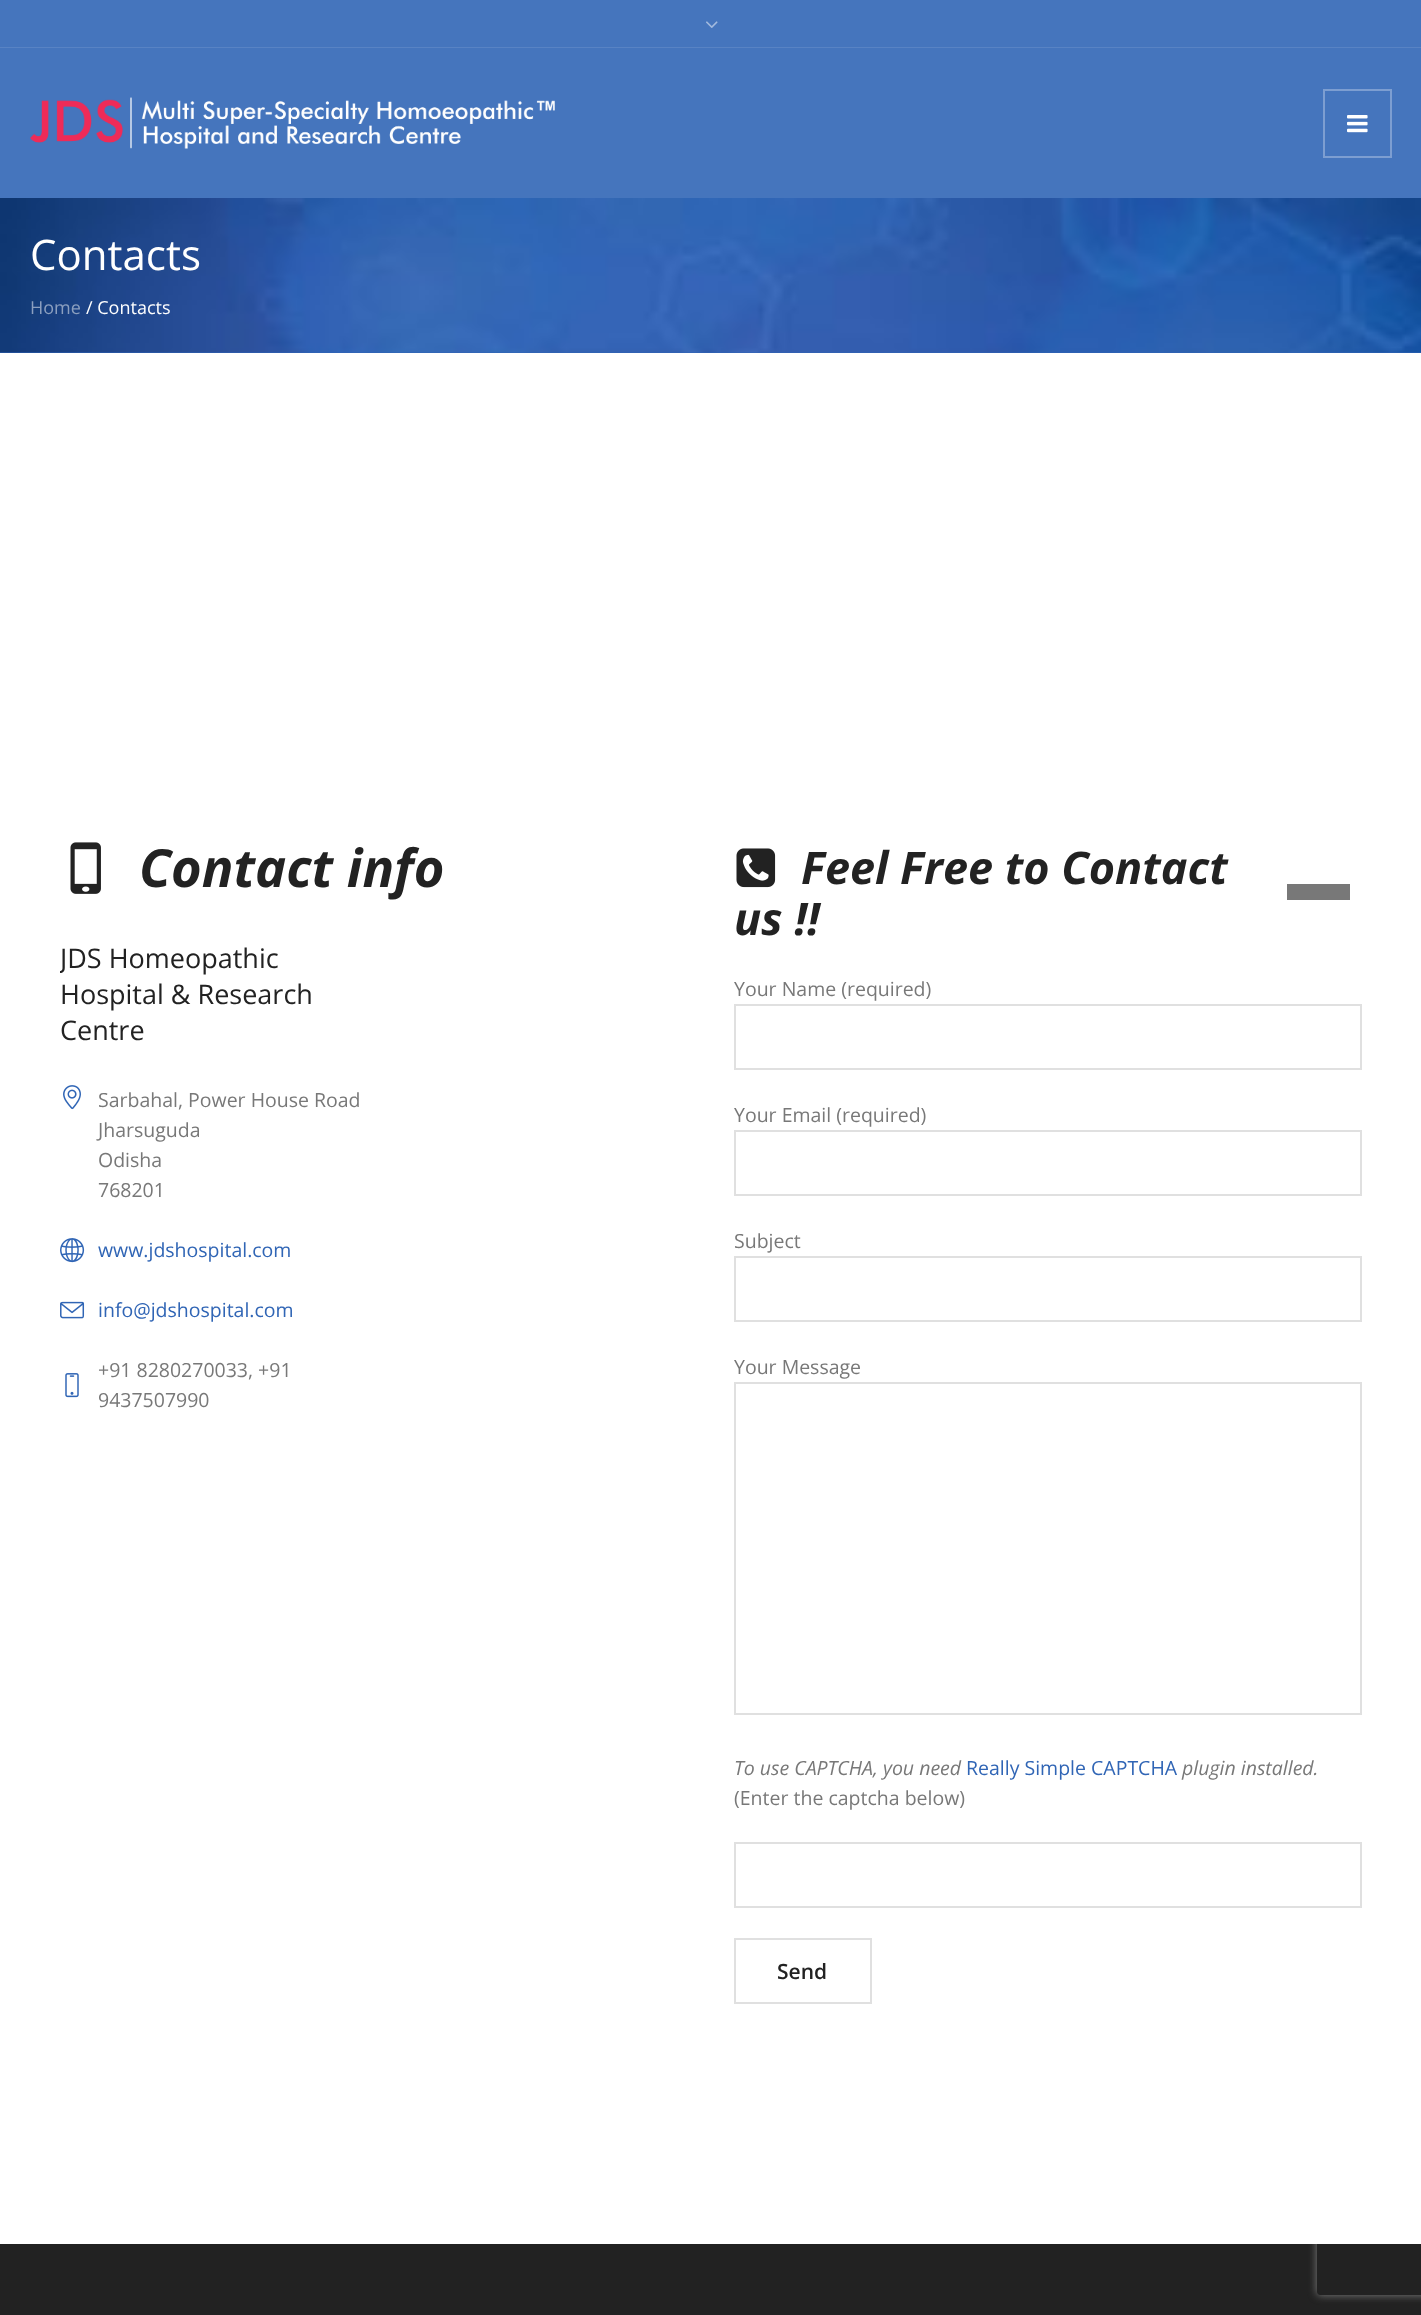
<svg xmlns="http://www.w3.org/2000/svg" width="1421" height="2315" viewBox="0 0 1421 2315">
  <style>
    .t1 { font: 42px Open Sans; fill: #fff; }
    .t2 { font: 18px Open Sans; fill: #8b9fbf; }
    .t3 { font: 18px Open Sans; fill: #fff; }
    .t4 { font: italic bold 52.5px Open Sans; fill: #222; }
    .t5 { font: 27px Open Sans; fill: #222; }
    .t6 { font: 19.5px Open Sans; fill: #787878; }
    .t7 { font: 19.5px Open Sans; fill: #3065b5; }
    .t8 { font: italic bold 45px Open Sans; fill: #222; }
    .t9 { font: italic 19.5px Open Sans; fill: #787878; }
    .t10 { font: 600 21px Open Sans; fill: #222; }
  </style>
  <defs>
    <clipPath id="clip1"><path d="M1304 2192H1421V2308H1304ZM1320 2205H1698C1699.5 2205 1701 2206.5 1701 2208V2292C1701 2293.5 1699.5 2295 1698 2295H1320C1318.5 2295 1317 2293.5 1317 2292V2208C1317 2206.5 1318.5 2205 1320 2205Z" clip-rule="evenodd"/></clipPath>
    <clipPath id="clip2"><rect x="60" y="939" width="303" height="536"/></clipPath>
  </defs>
  <rect width="100%" height="100%" fill="#222"/>
  <rect x="0" y="0" width="1421" height="47" fill="#4575bd"/>
  <rect x="0" y="47" width="1421" height="1" fill="#5883c4"/>
  <image x="706" y="21" width="12" height="7" href="images/1.png"/>
  <rect x="0" y="48" width="1421" height="150" fill="#4575bd"/>
  <image x="30" y="97" width="525" height="52" href="images/2.png"/>
  <rect x="1324" y="90" width="67" height="67" fill="none" stroke="#7d9ed1" stroke-width="2"/>
  <image x="1347" y="115" width="21" height="18" href="images/3.png"/>
  <rect x="0" y="352" width="1421" height="1" fill="#3065b5"/>
  <image x="0" y="198" width="1421" height="155" href="images/4.png"/>
  <text x="30" y="270" class="t1">Contacts</text>
  <text x="30" y="314" class="t2">Home</text>
  <text x="86" y="314" class="t3">/ Contacts</text>
  <g clip-path="url(#clip1)">
    <rect x="1317" y="2205" width="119" height="90" rx="3" fill="#808080" filter="blur(4px)"/>
  </g>
  <rect x="0" y="353" width="1421" height="1891" fill="#fff"/>
  <image x="70" y="842" width="31" height="52" href="images/5.png"/>
  <text x="139" y="887" class="t4">Contact info</text>
  <g clip-path="url(#clip2)">
    <text x="60" y="968" class="t5">JDS Homeopathic</text>
  </g>
  <text x="60" y="1004" class="t5">Hospital &amp; Research</text>
  <text x="60" y="1040" class="t5">Centre</text>
  <image x="63" y="1085" width="18" height="25" href="images/6.png"/>
  <text x="98" y="1107" class="t6">Sarbahal, Power House Road</text>
  <text x="98" y="1137" class="t6">Jharsuguda</text>
  <text x="98" y="1167" class="t6">Odisha</text>
  <text x="98" y="1197" class="t6">768201</text>
  <image x="60" y="1238" width="25" height="25" href="images/7.png"/>
  <text x="98" y="1257" class="t7">www.jdshospital.com</text>
  <image x="60" y="1301" width="25" height="18" href="images/8.png"/>
  <text x="98" y="1317" class="t7">info@jdshospital.com</text>
  <text x="98" y="1377" class="t6">+91 8280270033, +91</text>
  <image x="65" y="1373" width="14" height="25" href="images/9.png"/>
  <text x="98" y="1407" class="t6">9437507990</text>
  <image x="736" y="848" width="40" height="40" href="images/10.png"/>
  <text x="801" y="884" class="t8">Feel Free to Contact</text>
  <text x="734" y="935" class="t8">us !!</text>
  <rect x="1287" y="884" width="63" height="16" fill="#787878"/>
  <text x="734" y="996" class="t6">Your Name (required)</text>
  <rect x="735" y="1005" width="626" height="64" fill="none" stroke="#e0e0e0" stroke-width="2"/>
  <text x="734" y="1122" class="t6">Your Email (required)</text>
  <rect x="735" y="1131" width="626" height="64" fill="none" stroke="#e0e0e0" stroke-width="2"/>
  <text x="734" y="1248" class="t6">Subject</text>
  <rect x="735" y="1257" width="626" height="64" fill="none" stroke="#e0e0e0" stroke-width="2"/>
  <text x="734" y="1374" class="t6">Your Message</text>
  <rect x="735" y="1383" width="626" height="331" fill="none" stroke="#e0e0e0" stroke-width="2"/>
  <text x="734" y="1775" class="t9">To use CAPTCHA, you need</text>
  <text x="966" y="1775" class="t7">Really Simple CAPTCHA</text>
  <text x="1182" y="1775" class="t9">plugin installed.</text>
  <text x="734" y="1805" class="t6">(Enter the captcha below)</text>
  <rect x="735" y="1843" width="626" height="64" fill="none" stroke="#e0e0e0" stroke-width="2"/>
  <rect x="735" y="1939" width="136" height="64" fill="none" stroke="#e0e0e0" stroke-width="2"/>
  <text x="777" y="1979" class="t10">Send</text>
</svg>
